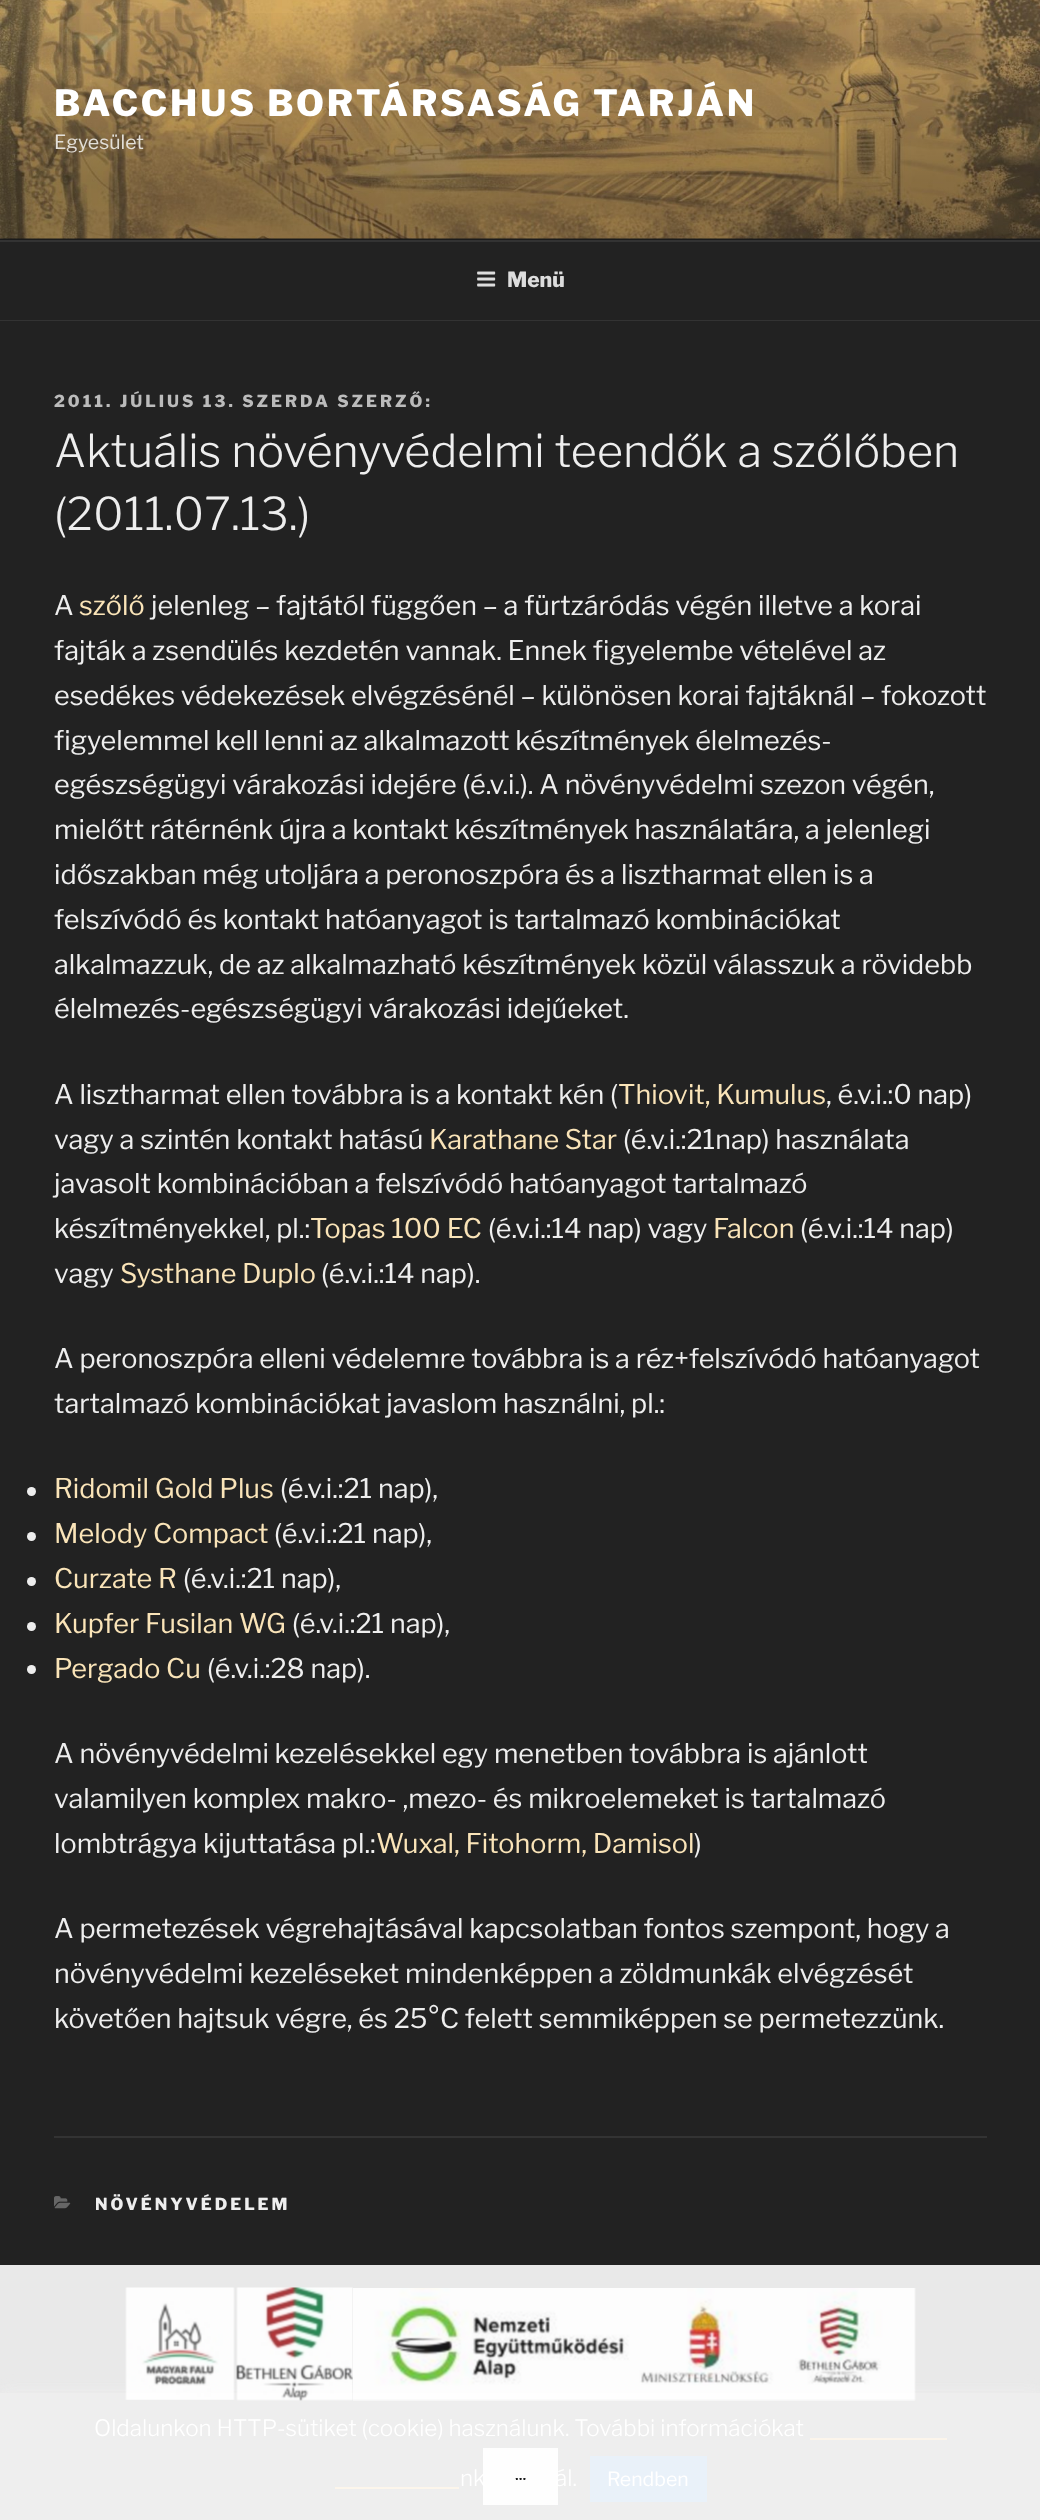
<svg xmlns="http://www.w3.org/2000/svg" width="1040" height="2520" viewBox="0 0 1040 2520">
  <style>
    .t1 { font: 100 36px Libre Franklin; letter-spacing: 2.9px; fill: #fff; }
    .t2 { font: 100 19.5px 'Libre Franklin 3'; fill: #e3dfd8; }
    .t3 { font: 100 21px Libre Franklin; fill: #ddd; }
    .t4 { font: 100 16.5px Libre Franklin; letter-spacing: 3px; fill: #bbb; }
    .t5 { font: 100 45px 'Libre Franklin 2'; fill: #eee; }
    .t6 { font: 100 27px 'Libre Franklin 3'; fill: #eee; }
    .t7 { font: 100 27px 'Libre Franklin 3'; fill: #fae4b8; }
    .t8 { font: 100 16.5px Libre Franklin; letter-spacing: 3px; fill: #eee; }
    .t9 { font: 100 22.5px 'Libre Franklin 2'; fill: #fff; }
    .t10 { font: 100 19.5px 'Libre Franklin 3'; fill: #fff; }
    .t11 { font: 100 18px 'Libre Franklin 3'; fill: #191919; }
  </style>
  <defs>
    <linearGradient id="g1" gradientUnits="userSpaceOnUse" x1="521" y1="0" x2="521" y2="240"><stop offset="0" stop-color="#000" stop-opacity="0"/><stop offset="0.75" stop-color="#000" stop-opacity="0.3"/><stop offset="1" stop-color="#000" stop-opacity="0.3"/></linearGradient>
  </defs>
  <rect width="100%" height="100%" fill="#262626"/>
  <image x="0" y="0" width="1040" height="239" href="images/1.png"/>
  <rect x="0" y="13" width="1040" height="227" fill="url(#g1)"/>
  <text x="54" y="116" class="t1">BACCHUS BORTÁRSASÁG TARJÁN</text>
  <text x="54" y="149" class="t2">Egyesület</text>
  <rect x="0" y="242" width="1040" height="78" fill="#222"/>
  <rect x="0" y="240" width="1040" height="2" fill="#333"/>
  <rect x="0" y="320" width="1040" height="1" fill="#333"/>
  <image x="477" y="271" width="19" height="16" href="images/2.png"/>
  <text x="507" y="287" class="t3">Menü</text>
  <rect x="0" y="321" width="1040" height="1944" fill="#222"/>
  <rect x="0" y="2265" width="1040" height="128" fill="#e9e9e9"/>
  <text x="54" y="407" class="t4">2011. JÚLIUS 13. SZERDA SZERZŐ:</text>
  <text x="54" y="467" class="t5">Aktuális növényvédelmi teendők a szőlőben</text>
  <text x="54" y="530" class="t5">(2011.07.13.)</text>
  <text x="54" y="615" class="t6">A</text>
  <text x="79" y="615" class="t7">szőlő</text>
  <text x="151" y="615" class="t6">jelenleg – fajtától függően – a fürtzáródás végén illetve a korai</text>
  <text x="54" y="660" class="t6">fajták a zsendülés kezdetén vannak. Ennek figyelembe vételével az</text>
  <text x="54" y="705" class="t6">esedékes védekezések elvégzésénél – különösen korai fajtáknál – fokozott</text>
  <text x="54" y="750" class="t6">figyelemmel kell lenni az alkalmazott készítmények élelmezés-</text>
  <text x="54" y="794" class="t6">egészségügyi várakozási idejére (é.v.i.). A növényvédelmi szezon végén,</text>
  <text x="54" y="839" class="t6">mielőtt rátérnénk újra a kontakt készítmények használatára, a jelenlegi</text>
  <text x="54" y="884" class="t6">időszakban még utoljára a peronoszpóra és a lisztharmat ellen is a</text>
  <text x="54" y="929" class="t6">felszívódó és kontakt hatóanyagot is tartalmazó kombinációkat</text>
  <text x="54" y="974" class="t6">alkalmazzuk, de az alkalmazható készítmények közül válasszuk a rövidebb</text>
  <text x="54" y="1018" class="t6">élelmezés-egészségügyi várakozási idejűeket.</text>
  <text x="54" y="1104" class="t6">A lisztharmat ellen továbbra is a kontakt kén (</text>
  <text x="618" y="1104" class="t7">Thiovit, Kumulus</text>
  <text x="826" y="1104" class="t6">, é.v.i.:0 nap)</text>
  <text x="54" y="1149" class="t6">vagy a szintén kontakt hatású</text>
  <text x="429" y="1149" class="t7">Karathane Star</text>
  <text x="623" y="1149" class="t6">(é.v.i.:21nap) használata</text>
  <text x="54" y="1193" class="t6">javasolt kombinációban a felszívódó hatóanyagot tartalmazó</text>
  <text x="54" y="1238" class="t6">készítményekkel, pl.:</text>
  <text x="310" y="1238" class="t7">Topas 100 EC</text>
  <text x="488" y="1238" class="t6">(é.v.i.:14 nap) vagy</text>
  <text x="713" y="1238" class="t7">Falcon</text>
  <text x="800" y="1238" class="t6">(é.v.i.:14 nap)</text>
  <text x="54" y="1283" class="t6">vagy</text>
  <text x="120" y="1283" class="t7">Systhane Duplo</text>
  <text x="321" y="1283" class="t6">(é.v.i.:14 nap).</text>
  <text x="54" y="1368" class="t6">A peronoszpóra elleni védelemre továbbra is a réz+felszívódó hatóanyagot</text>
  <text x="54" y="1413" class="t6">tartalmazó kombinációkat javaslom használni, pl.:</text>
  <circle cx="31.5" cy="1491.5" r="4.5" fill="#eee"/>
  <text x="54" y="1498" class="t7">Ridomil Gold Plus</text>
  <text x="280" y="1498" class="t6">(é.v.i.:21 nap),</text>
  <circle cx="31.5" cy="1536.5" r="4.5" fill="#eee"/>
  <text x="54" y="1543" class="t7">Melody Compact</text>
  <text x="274" y="1543" class="t6">(é.v.i.:21 nap),</text>
  <circle cx="31.5" cy="1581.5" r="4.5" fill="#eee"/>
  <text x="54" y="1588" class="t7">Curzate R</text>
  <text x="183" y="1588" class="t6">(é.v.i.:21 nap),</text>
  <circle cx="31.5" cy="1626.5" r="4.5" fill="#eee"/>
  <text x="54" y="1633" class="t7">Kupfer Fusilan WG</text>
  <text x="292" y="1633" class="t6">(é.v.i.:21 nap),</text>
  <circle cx="31.5" cy="1669.5" r="4.5" fill="#eee"/>
  <text x="54" y="1678" class="t7">Pergado Cu</text>
  <text x="207" y="1678" class="t6">(é.v.i.:28 nap).</text>
  <text x="54" y="1763" class="t6">A növényvédelmi kezelésekkel egy menetben továbbra is ajánlott</text>
  <text x="54" y="1808" class="t6">valamilyen komplex makro- ,mezo- és mikroelemeket is tartalmazó</text>
  <text x="54" y="1853" class="t6">lombtrágya kijuttatása pl.:</text>
  <text x="376" y="1853" class="t7">Wuxal, Fitohorm, Damisol</text>
  <text x="694" y="1853" class="t6">)</text>
  <text x="54" y="1938" class="t6">A permetezések végrehajtásával kapcsolatban fontos szempont, hogy a</text>
  <text x="54" y="1983" class="t6">növényvédelmi kezeléseket mindenképpen a zöldmunkák elvégzését</text>
  <text x="54" y="2028" class="t6">követően hajtsuk végre, és 25°C felett semmiképpen se permetezzünk.</text>
  <rect x="54" y="2136" width="933" height="2" fill="#333"/>
  <image x="54" y="2196" width="17" height="13" href="images/3.png"/>
  <text x="95" y="2210" class="t8">NÖVÉNYVÉDELEM</text>
  <rect x="0" y="2391" width="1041" height="128" fill="#f7f7f74d" filter="blur(7.5px)"/>
  <rect x="0" y="2393" width="1040" height="127" fill="#eee"/>
  <text x="94" y="2436" class="t9">Oldalunkon HTTP-sütiket (cookie) használunk. További információkat</text>
  <rect x="810" y="2438" width="137" height="2" fill="#fcf5eb"/>
  <text x="460" y="2486" class="t9">nk</text>
  <text x="555" y="2486" class="t9">ál.</text>
  <rect x="590" y="2456" width="117" height="46" fill="#e9f1f9"/>
  <text x="607" y="2486" class="t10">Rendben</text>
  <rect x="335" y="2487" width="124" height="2" fill="#fcf5eb"/>
  <image x="125" y="2287" width="110" height="113" href="images/4.png"/>
  <image x="236" y="2287" width="117" height="114" href="images/5.png"/>
  <image x="353" y="2288" width="563" height="113" href="images/6.png"/>
  <rect x="483" y="2448" width="75" height="57" fill="#ffffffe6"/>
  <text x="515" y="2480" class="t11">...</text>
</svg>
